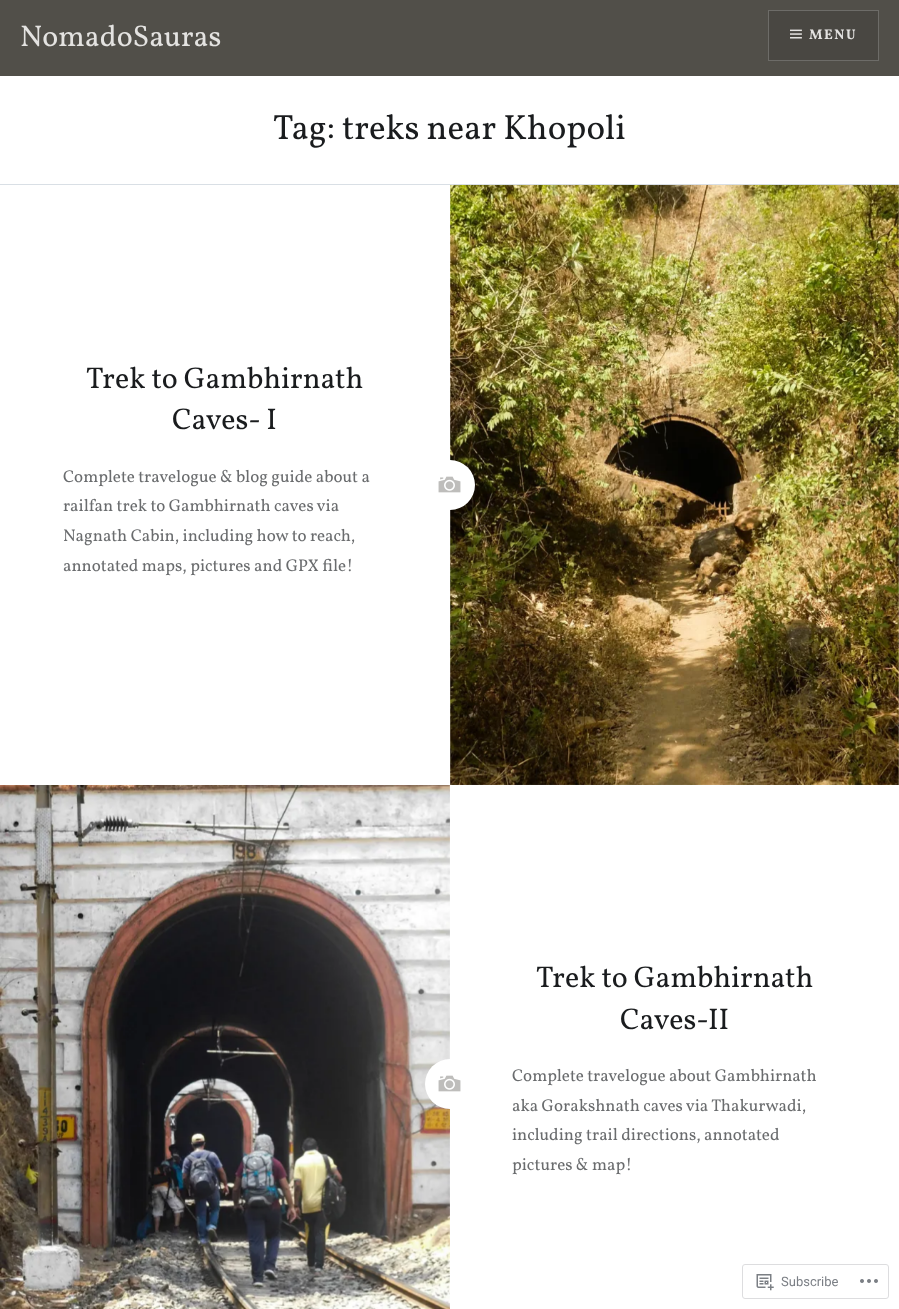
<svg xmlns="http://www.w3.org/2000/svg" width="899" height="1309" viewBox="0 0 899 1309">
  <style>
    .t1 { font: 30px Vollkorn; fill: #e4e3e1; }
    .t2 { font: bold 14px Vollkorn; letter-spacing: 1.5px; fill: #e4e3e1; }
    .t3 { font: 35px Vollkorn; fill: #1a1c1e; }
    .t4 { font: 30px Vollkorn; fill: #1a1c1e; }
    .t5 { font: 17px Vollkorn; fill: #6a6c6e; }
    .t6 { font: 13px Roboto; fill: #7b7f85; }
  </style>
  <rect width="100%" height="100%" fill="#fff"/>
  <rect x="0" y="0" width="899" height="76" fill="#514f49"/>
  <text x="20" y="46" class="t1">NomadoSauras</text>
  <rect x="768.5" y="10.5" width="110" height="50" fill="#494742" stroke="#6d6c68"/>
  <image x="790" y="29" width="12" height="10" href="images/1.png"/>
  <text x="809" y="39" class="t2">MENU</text>
  <rect x="0" y="184" width="899" height="1" fill="#d9dfe5"/>
  <text x="273" y="139" class="t3">Tag: treks near Khopoli</text>
  <text x="86" y="388" class="t4">Trek to Gambhirnath</text>
  <text x="172" y="429" class="t4">Caves- I</text>
  <text x="63" y="482" class="t5">Complete travelogue &amp; blog guide about a</text>
  <text x="63" y="511" class="t5">railfan trek to Gambhirnath caves via</text>
  <text x="63" y="541" class="t5">Nagnath Cabin, including how to reach,</text>
  <text x="63" y="571" class="t5">annotated maps, pictures and GPX file!</text>
  <image x="450" y="185" width="449" height="600" href="images/3.png"/>
  <circle cx="450" cy="485" r="25" fill="#fff"/>
  <image x="438" y="476" width="23" height="17" href="images/2.png"/>
  <image x="0" y="785" width="450" height="524" href="images/4.png"/>
  <circle cx="450" cy="1084" r="25" fill="#fff"/>
  <text x="536" y="987" class="t4">Trek to Gambhirnath</text>
  <text x="620" y="1029" class="t4">Caves-II</text>
  <text x="512" y="1081" class="t5">Complete travelogue about Gambhirnath</text>
  <text x="512" y="1111" class="t5">aka Gorakshnath caves via Thakurwadi,</text>
  <text x="512" y="1140" class="t5">including trail directions, annotated</text>
  <text x="512" y="1170" class="t5">pictures &amp; map!</text>
  <image x="438" y="1075" width="23" height="17" href="images/2.png"/>
  <rect x="742.5" y="1264.5" width="146" height="34" rx="2.5" fill="none" stroke="#dddddf"/>
  <image x="756" y="1274" width="18" height="17" href="images/5.png"/>
  <text x="781" y="1286" class="t6">Subscribe</text>
  <image x="860" y="1279" width="18" height="4" href="images/6.png"/>
</svg>
